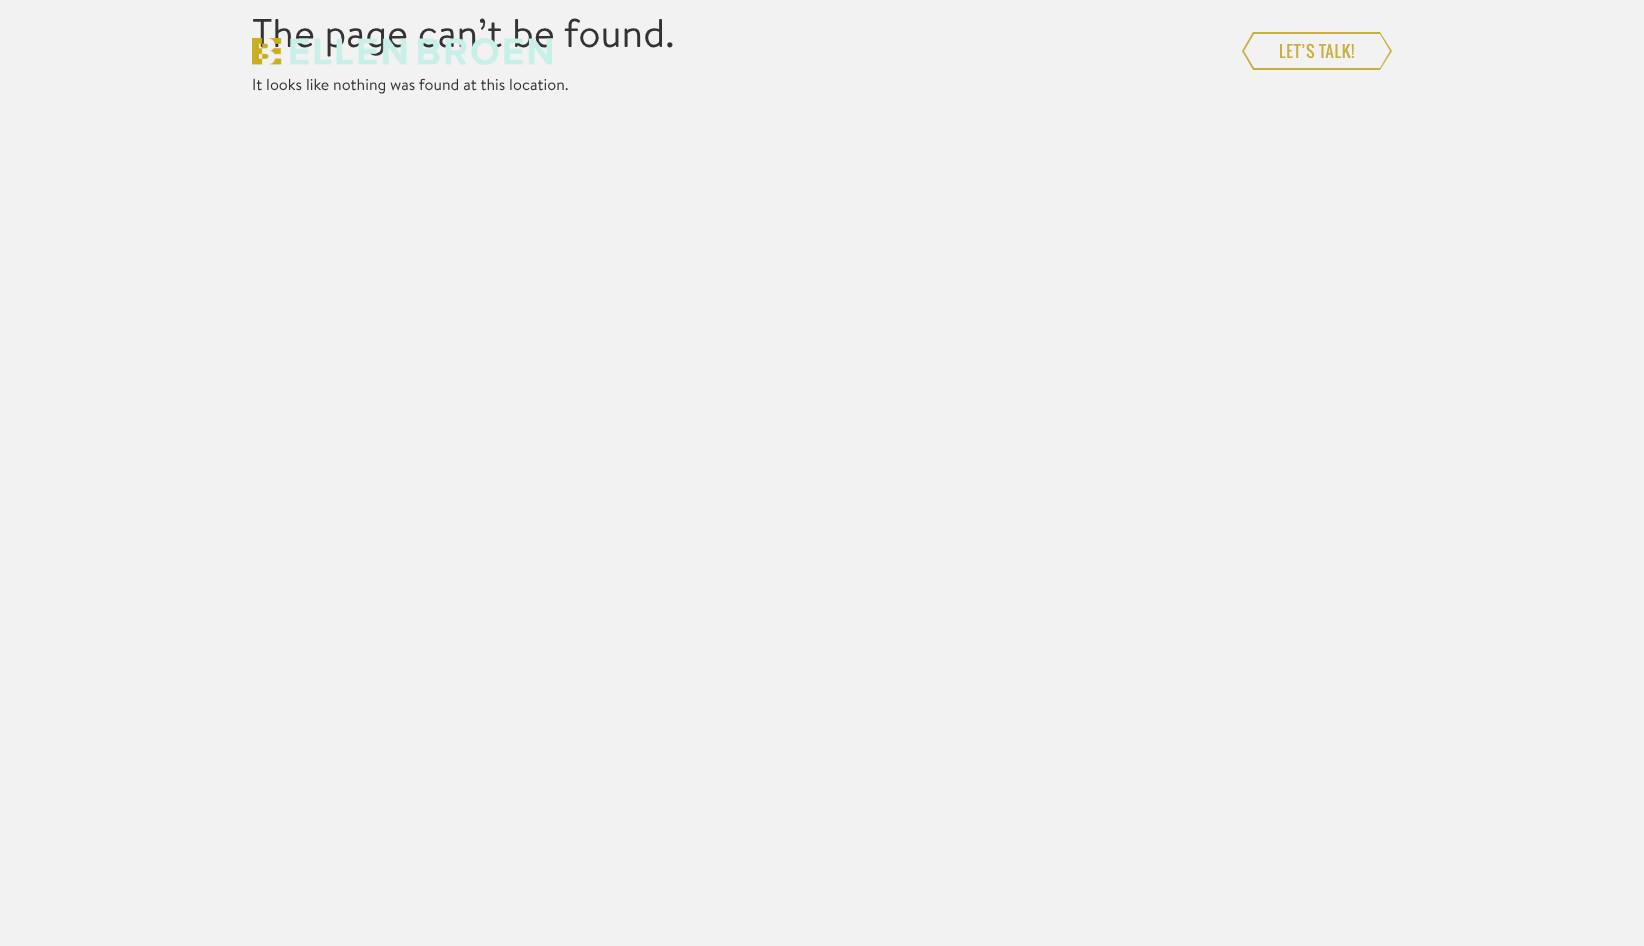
<svg xmlns="http://www.w3.org/2000/svg" width="1644" height="946" viewBox="0 0 1644 946">
  <style>
    .t1 { font: 40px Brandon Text; fill: #333; }
    .t2 { font: 16px Brandon Text; fill: #333; }
    .t3 { font: 16px Oswald; letter-spacing: 0.75px; fill: #c8af41; }
  </style>
  <rect width="100%" height="100%" fill="#f2f2f2"/>
  <text x="252" y="47" class="t1">The page can’t be found.</text>
  <text x="252" y="90" class="t2">It looks like nothing was found at this location.</text>
  <image x="252" y="38" width="300" height="27" href="images/1.png"/>
  <path d="M1254 34L1244 51L1254 68H1380L1390 51L1380 34H1254M1253 32H1380L1392 51L1380 70H1253L1242 51Z" fill="#c8af41"/>
  <text x="1279" y="58" class="t3">LET’S TALK!</text>
</svg>
